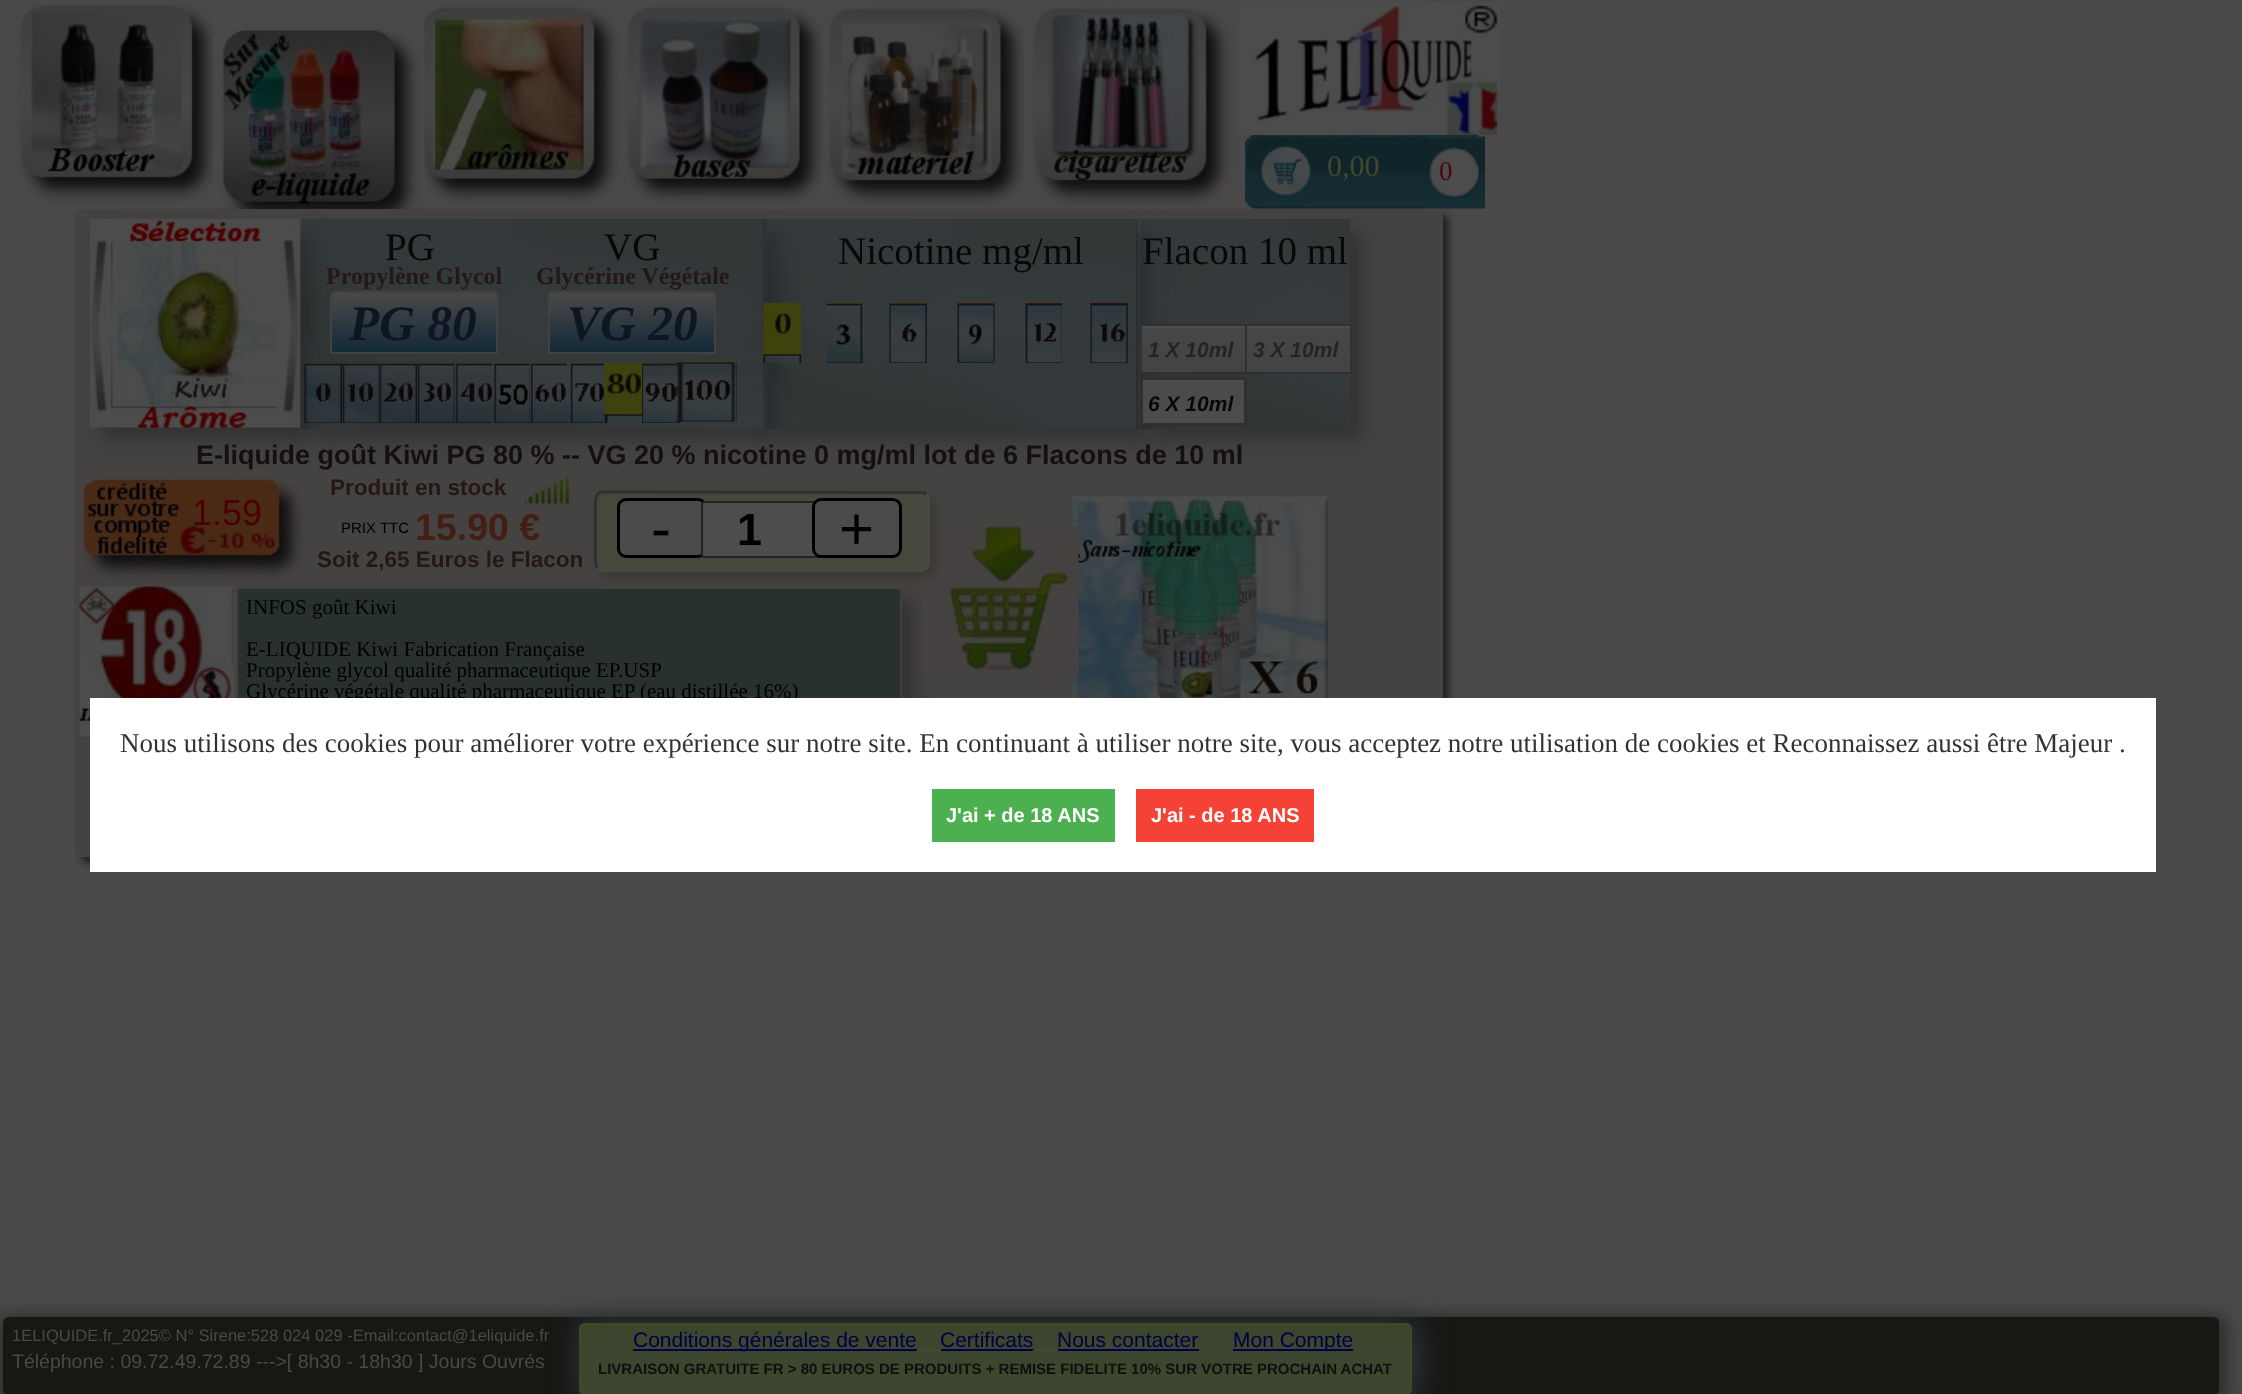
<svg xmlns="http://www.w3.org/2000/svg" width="2242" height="1394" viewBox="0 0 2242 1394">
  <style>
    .t1 { font: 30px Liberation Serif; fill: #43482d; }
    .t2 { font: 27px Liberation Serif; fill: #4b0803; }
    .t3 { font: 39px Liberation Serif; fill: #080808; }
    .t4 { font: bold 24px Liberation Serif; fill: #241817; }
    .t5 { font: italic bold 49.5px Liberation Serif; fill: #0e1624; }
    .t6 { font: italic bold 21px Liberation Sans; fill: #242424; }
    .t7 { font: italic bold 21px Liberation Sans; fill: #080808; }
    .t8 { font: bold 27px Liberation Sans; fill: #141010; }
    .t9 { font: 36px Liberation Sans; fill: #4a0104; }
    .t10 { font: 15px Liberation Sans; fill: #020101; }
    .t11 { font: bold 37.5px Liberation Sans; fill: #421e14; }
    .t12 { font: bold 22.5px Liberation Sans; fill: #241817; }
    .t13 { font: 21px Liberation Serif; fill: #020101; }
    .t14 { font: 60px Liberation Sans; fill: #020101; }
    .t15 { font: bold 45px Liberation Sans; fill: #020101; }
    .t16 { font: 27px Liberation Serif; fill: #333; }
    .t17 { font: bold 20px Liberation Sans; fill: #fff; }
    .t18 { font: 16.5px Liberation Sans; fill: #494a47; }
    .t19 { font: 21px Liberation Sans; fill: #000047; }
    .t20 { font: 21px Liberation Sans; fill: #494a47; }
    .t21 { font: 19.5px Liberation Sans; fill: #494a47; }
    .t22 { font: bold 15px Liberation Sans; fill: #0e0f0e; }
  </style>
  <defs>
    <clipPath id="clip1"><path d="M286 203H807V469H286ZM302 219H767V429H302Z" clip-rule="evenodd"/></clipPath>
    <clipPath id="clip2"><path d="M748 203H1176V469H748ZM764 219H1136V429H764Z" clip-rule="evenodd"/></clipPath>
    <clipPath id="clip3"><path d="M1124 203H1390V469H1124ZM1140 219H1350V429H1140Z" clip-rule="evenodd"/></clipPath>
    <clipPath id="clip4"><path d="M335 291H493C496 291 498 293 498 296V354H330V296C330 293 332 291 335 291Z"/></clipPath>
    <linearGradient id="g1" gradientUnits="userSpaceOnUse" x1="332" y1="293" x2="332" y2="353"><stop offset="0.05" stop-color="#474747"/><stop offset="1" stop-color="#132939"/></linearGradient>
    <clipPath id="clip5"><path d="M553 291H711C714 291 716 293 716 296V354H548V296C548 293 550 291 553 291Z"/></clipPath>
    <linearGradient id="g2" gradientUnits="userSpaceOnUse" x1="549" y1="293" x2="549" y2="353"><stop offset="0.05" stop-color="#474747"/><stop offset="1" stop-color="#132939"/></linearGradient>
    <linearGradient id="g3" gradientUnits="userSpaceOnUse" x1="1142" y1="326" x2="1142" y2="372"><stop offset="0.05" stop-color="#474747"/><stop offset="1" stop-color="#434343"/></linearGradient>
    <linearGradient id="g4" gradientUnits="userSpaceOnUse" x1="1247" y1="326" x2="1247" y2="372"><stop offset="0.05" stop-color="#474747"/><stop offset="1" stop-color="#434343"/></linearGradient>
    <linearGradient id="g5" gradientUnits="userSpaceOnUse" x1="1143" y1="380" x2="1143" y2="423"><stop offset="0.05" stop-color="#4a4a4a"/><stop offset="1" stop-color="#4d4d4d"/></linearGradient>
    <clipPath id="clip6"><rect x="579" y="1323" width="833" height="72" rx="6"/></clipPath>
    <linearGradient id="g6" gradientUnits="userSpaceOnUse" x1="581" y1="1325" x2="581" y2="1394"><stop offset="0.05" stop-color="#3c462d"/><stop offset="1" stop-color="#3e462e"/></linearGradient>
  </defs>
  <rect width="100%" height="100%" fill="#4a4848"/>
  <image x="15" y="3" width="207" height="202" href="images/1.png"/>
  <image x="420" y="0" width="206" height="206" href="images/3.png"/>
  <image x="214" y="22" width="211" height="187" href="images/2.png"/>
  <image x="826" y="0" width="202" height="207" href="images/5.png"/>
  <image x="620" y="1" width="210" height="205" href="images/4.png"/>
  <image x="1029" y="0" width="210" height="207" href="images/6.png"/>
  <image x="1239" y="0" width="261" height="135" href="images/7.png"/>
  <rect x="81" y="215" width="1368" height="648" rx="6" fill="#00000080" filter="blur(3px)"/>
  <rect x="75" y="209" width="1368" height="648" rx="6" fill="#454242"/>
  <rect x="102" y="231" width="210" height="210" fill="#333" filter="blur(9px)"/>
  <image x="90" y="219" width="210" height="209" href="images/9.png"/>
  <g clip-path="url(#clip1)">
    <rect x="314" y="231" width="465" height="210" fill="#333" filter="blur(9px)"/>
  </g>
  <image x="301" y="219" width="466" height="210" href="images/11.png"/>
  <g clip-path="url(#clip2)">
    <rect x="776" y="231" width="372" height="210" fill="#333" filter="blur(9px)"/>
  </g>
  <image x="763" y="219" width="376" height="210" href="images/23.png"/>
  <image x="1090" y="303" width="38" height="60" href="images/29.png"/>
  <g clip-path="url(#clip3)">
    <rect x="1152" y="231" width="210" height="210" fill="#333" filter="blur(9px)"/>
  </g>
  <image x="1245" y="135" width="240" height="74" href="images/8.png"/>
  <text x="1327" y="176" class="t1">0,00</text>
  <text x="1439" y="180" class="t2">0</text>
  <image x="112" y="241" width="166" height="166" href="images/10.png"/>
  <text x="385" y="260" class="t3">PG</text>
  <text x="604" y="260" class="t3">VG</text>
  <text x="326" y="284" class="t4">Propylène Glycol</text>
  <text x="536" y="284" class="t4">Glycérine Végétale</text>
  <g clip-path="url(#clip4)">
    <rect x="330" y="293" width="168" height="59" fill="url(#g1)"/>
  </g>
  <path d="M335 292H493C495 292 497 294 497 296V353H331V296C331 294 333 292 335 292Z" fill="none" stroke="#424242" stroke-width="2"/>
  <text x="349" y="340" class="t5">PG 80</text>
  <g clip-path="url(#clip5)">
    <rect x="548" y="293" width="168" height="59" fill="url(#g2)"/>
  </g>
  <path d="M553 292H711C713 292 715 294 715 296V353H549V296C549 294 551 292 553 292Z" fill="none" stroke="#424242" stroke-width="2"/>
  <text x="567" y="340" class="t5">VG 20</text>
  <image x="304" y="363" width="38" height="60" href="images/12.png"/>
  <image x="342" y="363" width="38" height="60" href="images/13.png"/>
  <image x="379" y="363" width="38" height="60" href="images/14.png"/>
  <image x="417" y="363" width="38" height="60" href="images/15.png"/>
  <image x="454" y="363" width="38" height="60" href="images/16.png"/>
  <image x="492" y="363" width="38" height="60" href="images/17.png"/>
  <image x="529" y="363" width="38" height="60" href="images/18.png"/>
  <image x="567" y="363" width="38" height="60" href="images/19.png"/>
  <image x="604" y="363" width="38" height="60" href="images/20.png"/>
  <image x="642" y="363" width="38" height="60" href="images/21.png"/>
  <image x="676" y="361" width="61" height="61" href="images/22.png"/>
  <text x="838" y="264" class="t3">Nicotine mg/ml</text>
  <image x="763" y="303" width="38" height="60" href="images/24.png"/>
  <image x="826" y="303" width="38" height="60" href="images/25.png"/>
  <image x="889" y="303" width="38" height="60" href="images/26.png"/>
  <image x="957" y="303" width="38" height="60" href="images/27.png"/>
  <image x="1024" y="303" width="38" height="60" href="images/28.png"/>
  <image x="1140" y="219" width="210" height="210" href="images/30.png"/>
  <text x="1142" y="264" class="t3">Flacon 10 ml</text>
  <rect x="1142" y="328" width="103" height="44" fill="url(#g3)"/>
  <rect x="1142" y="326" width="103" height="2" fill="#4d4d4d"/>
  <rect x="1141" y="325" width="105" height="48" fill="none" stroke="#313036" stroke-width="2"/>
  <text x="1148" y="357" class="t6">1 X 10ml</text>
  <rect x="1247" y="328" width="103" height="44" fill="url(#g4)"/>
  <rect x="1247" y="326" width="103" height="2" fill="#4d4d4d"/>
  <rect x="1246" y="325" width="105" height="48" fill="none" stroke="#313036" stroke-width="2"/>
  <text x="1253" y="357" class="t6">3 X 10ml</text>
  <rect x="1143" y="382" width="101" height="41" fill="url(#g5)"/>
  <rect x="1143" y="380" width="101" height="2" fill="#4d4d4d"/>
  <rect x="1141.5" y="378.5" width="104" height="46" rx="1.5" fill="none" stroke="#2f2f2f" stroke-width="3"/>
  <text x="1148" y="411" class="t7">6 X 10ml</text>
  <text x="196" y="464" class="t8">E-liquide goût Kiwi PG 80 % -- VG 20 % nicotine 0 mg/ml lot de 6 Flacons de 10 ml</text>
  <rect x="248" y="599" width="666" height="252" rx="6" fill="#333" filter="blur(9px)"/>
  <image x="78" y="477" width="228" height="104" href="images/31.png"/>
  <text x="192" y="525" class="t9">1.59</text>
  <text x="341" y="533" class="t10">PRIX TTC</text>
  <text x="415" y="540" class="t11">15.90 €</text>
  <text x="317" y="567" class="t12">Soit 2,65 Euros le Flacon</text>
  <text x="330" y="495" class="t12">Produit en stock</text>
  <image x="525" y="475" width="45" height="30" href="images/32.png"/>
  <image x="1072" y="496" width="256" height="202" href="images/33.png"/>
  <image x="79" y="586" width="157" height="151" href="images/34.png"/>
  <rect x="237" y="588" width="664" height="250" rx="5" fill="#293030" stroke="#433f3b" stroke-width="2"/>
  <text x="246" y="614" class="t13">INFOS goût Kiwi</text>
  <text x="246" y="656" class="t13">E-LIQUIDE Kiwi Fabrication Française</text>
  <text x="246" y="677" class="t13">Propylène glycol qualité pharmaceutique EP.USP</text>
  <text x="246" y="698" class="t13">Glycérine végétale qualité pharmaceutique EP (eau distillée 16%)</text>
  <image x="1072" y="496" width="256" height="202" href="images/36.png"/>
  <image x="922" y="526" width="157" height="151" href="images/35.png"/>
  <rect x="600" y="497" width="336" height="81" rx="9" fill="#34312880" filter="blur(3px)"/>
  <rect x="594" y="491" width="336" height="81" rx="9" fill="#48473b"/>
  <path d="M926.5 494C930 498 928.5 506 928.5 510V552C928.5 557.5 930.5 570 921 570L601 569.5L597.5 568" fill="none" stroke="#484848" stroke-width="3"/>
  <path d="M597.5 568C594 564 595.5 556 595.5 552V510C595.5 504.5 593.5 492 603 492L923 492.5L926.5 494" fill="none" stroke="#303030" stroke-width="3"/>
  <rect x="618.5" y="499.5" width="87" height="57" rx="7.5" fill="#4b4b4b" stroke="#000" stroke-width="3"/>
  <text x="651" y="549" class="t14">-</text>
  <rect x="702" y="502" width="118" height="55" rx="2" fill="#4d4d4d" stroke="#232323" stroke-width="2"/>
  <text x="737" y="545" class="t15">1</text>
  <rect x="813.5" y="499.5" width="87" height="57" rx="7.5" fill="#4b4b4b" stroke="#000" stroke-width="3"/>
  <text x="839" y="549" class="t14">+</text>
  <rect x="90" y="698" width="2066" height="174" fill="#fff"/>
  <text x="120" y="752" class="t16">Nous utilisons des cookies pour améliorer votre expérience sur notre site. En continuant à utiliser notre site, vous acceptez notre utilisation de cookies et Reconnaissez aussi être Majeur .</text>
  <rect x="932" y="789" width="183" height="53" fill="#4caf50"/>
  <text x="946" y="822" class="t17">J'ai + de 18 ANS</text>
  <rect x="1136" y="789" width="178" height="53" fill="#f44336"/>
  <text x="1151" y="822" class="t17">J'ai - de 18 ANS</text>
  <rect x="-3" y="1314" width="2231" height="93" rx="14" fill="#00000057" filter="blur(7px)"/>
  <rect x="3" y="1317" width="2216" height="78" rx="6" fill="#161814"/>
  <text x="12" y="1341" class="t18">1ELIQUIDE.fr_2025© N° Sirene:528 024 029 -Email:contact@1eliquide.fr</text>
  <rect x="578" y="1320" width="841" height="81" rx="11" fill="#2f3438" filter="blur(14px)"/>
  <g clip-path="url(#clip6)">
    <rect x="579" y="1325" width="833" height="69" fill="url(#g6)"/>
  </g>
  <rect x="580" y="1324" width="831" height="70" rx="5" fill="none" stroke="#414928" stroke-width="2"/>
  <rect x="633" y="1349" width="284" height="2" fill="#000047"/>
  <text x="633" y="1347" class="t19">Conditions générales de vente</text>
  <text x="940" y="1347" class="t19">Certificats</text>
  <rect x="941" y="1349" width="93" height="2" fill="#000047"/>
  <text x="1057" y="1347" class="t19">Nous contacter</text>
  <rect x="1058" y="1349" width="141" height="2" fill="#000047"/>
  <text x="917" y="1347" class="t20">__</text>
  <text x="1033" y="1347" class="t20">__</text>
  <rect x="1233" y="1349" width="120" height="2" fill="#000047"/>
  <text x="1233" y="1347" class="t19">Mon Compte</text>
  <text x="12" y="1368" class="t21">Téléphone : 09.72.49.72.89 ---&gt;[ 8h30 - 18h30 ] Jours Ouvrés</text>
  <text x="598" y="1374" class="t22">LIVRAISON GRATUITE FR &gt; 80 EUROS DE PRODUITS + REMISE FIDELITE 10% SUR VOTRE PROCHAIN ACHAT</text>
</svg>
